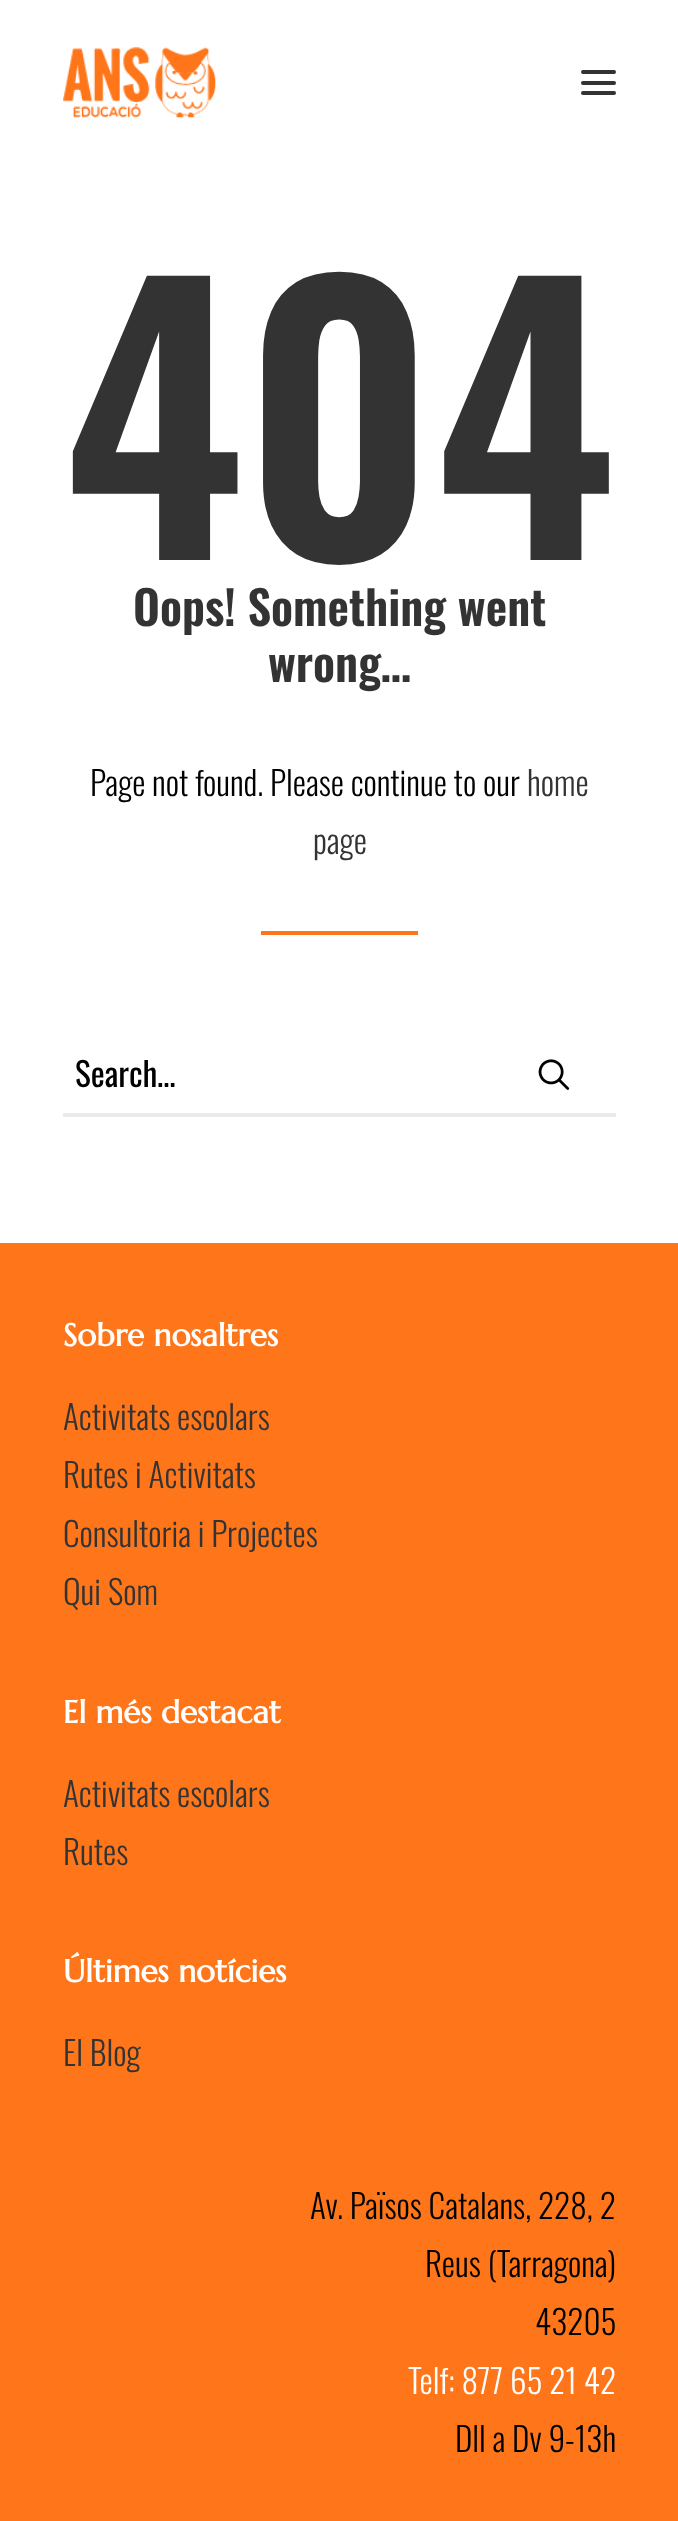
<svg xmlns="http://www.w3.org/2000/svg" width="678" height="2521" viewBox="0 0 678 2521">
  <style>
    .t1 { font: 600 351px Oswald; fill: #333; }
    .t2 { font: 600 46.75px Oswald; fill: #333; }
    .t3 { font: 300 33.25px Oswald; fill: #000; }
    .t4 { font: 300 33.25px Oswald; fill: #333; }
    .t5 { font: 33.25px Oswald; fill: #000; }
    .t6 { font: bold 31.5px Marcellus; fill: #fff; }
    .t7 { font: 300 33.25px Oswald; fill: #fff; }
  </style>
  <rect width="100%" height="100%" fill="#fff"/>
  <image x="63" y="47" width="153" height="71" href="images/1.png"/>
  <rect x="581" y="81" width="35" height="4" rx="2" fill="#333"/>
  <rect x="581" y="70" width="35" height="4" rx="2" fill="#333"/>
  <rect x="581" y="91" width="35" height="4" rx="2" fill="#333"/>
  <text x="63" y="560" class="t1">404</text>
  <text x="133" y="626" class="t2">Oops! Something went</text>
  <text x="268" y="682" class="t2">wrong…</text>
  <text x="90" y="796" class="t3">Page not found. Please continue to our</text>
  <text x="527" y="796" class="t4">home</text>
  <text x="313" y="854" class="t4">page</text>
  <rect x="261" y="931" width="157" height="4" fill="#ff761a"/>
  <rect x="63" y="1113" width="553" height="4" fill="#eaeaea"/>
  <text x="75" y="1087" class="t5">Search…</text>
  <image x="538" y="1059" width="32" height="31" href="images/2.png"/>
  <rect x="0" y="1243" width="678" height="1278" fill="#ff761a"/>
  <text x="63" y="1346" class="t6">Sobre nosaltres</text>
  <text x="63" y="1430" class="t4">Activitats escolars</text>
  <text x="63" y="1488" class="t4">Rutes i Activitats</text>
  <text x="63" y="1547" class="t4">Consultoria i Projectes</text>
  <text x="63" y="1605" class="t4">Qui Som</text>
  <text x="63" y="1723" class="t6">El més destacat</text>
  <text x="63" y="1807" class="t4">Activitats escolars</text>
  <text x="63" y="1865" class="t4">Rutes</text>
  <text x="63" y="1982" class="t6">Últimes notícies</text>
  <text x="63" y="2066" class="t4">El Blog</text>
  <text x="310" y="2219" class="t3">Av. Països Catalans, 228, 2</text>
  <text x="425" y="2277" class="t3">Reus (Tarragona)</text>
  <text x="535" y="2335" class="t3">43205</text>
  <text x="408" y="2394" class="t7">Telf: 877 65 21 42</text>
  <text x="455" y="2452" class="t3">Dll a Dv 9-13h</text>
</svg>
